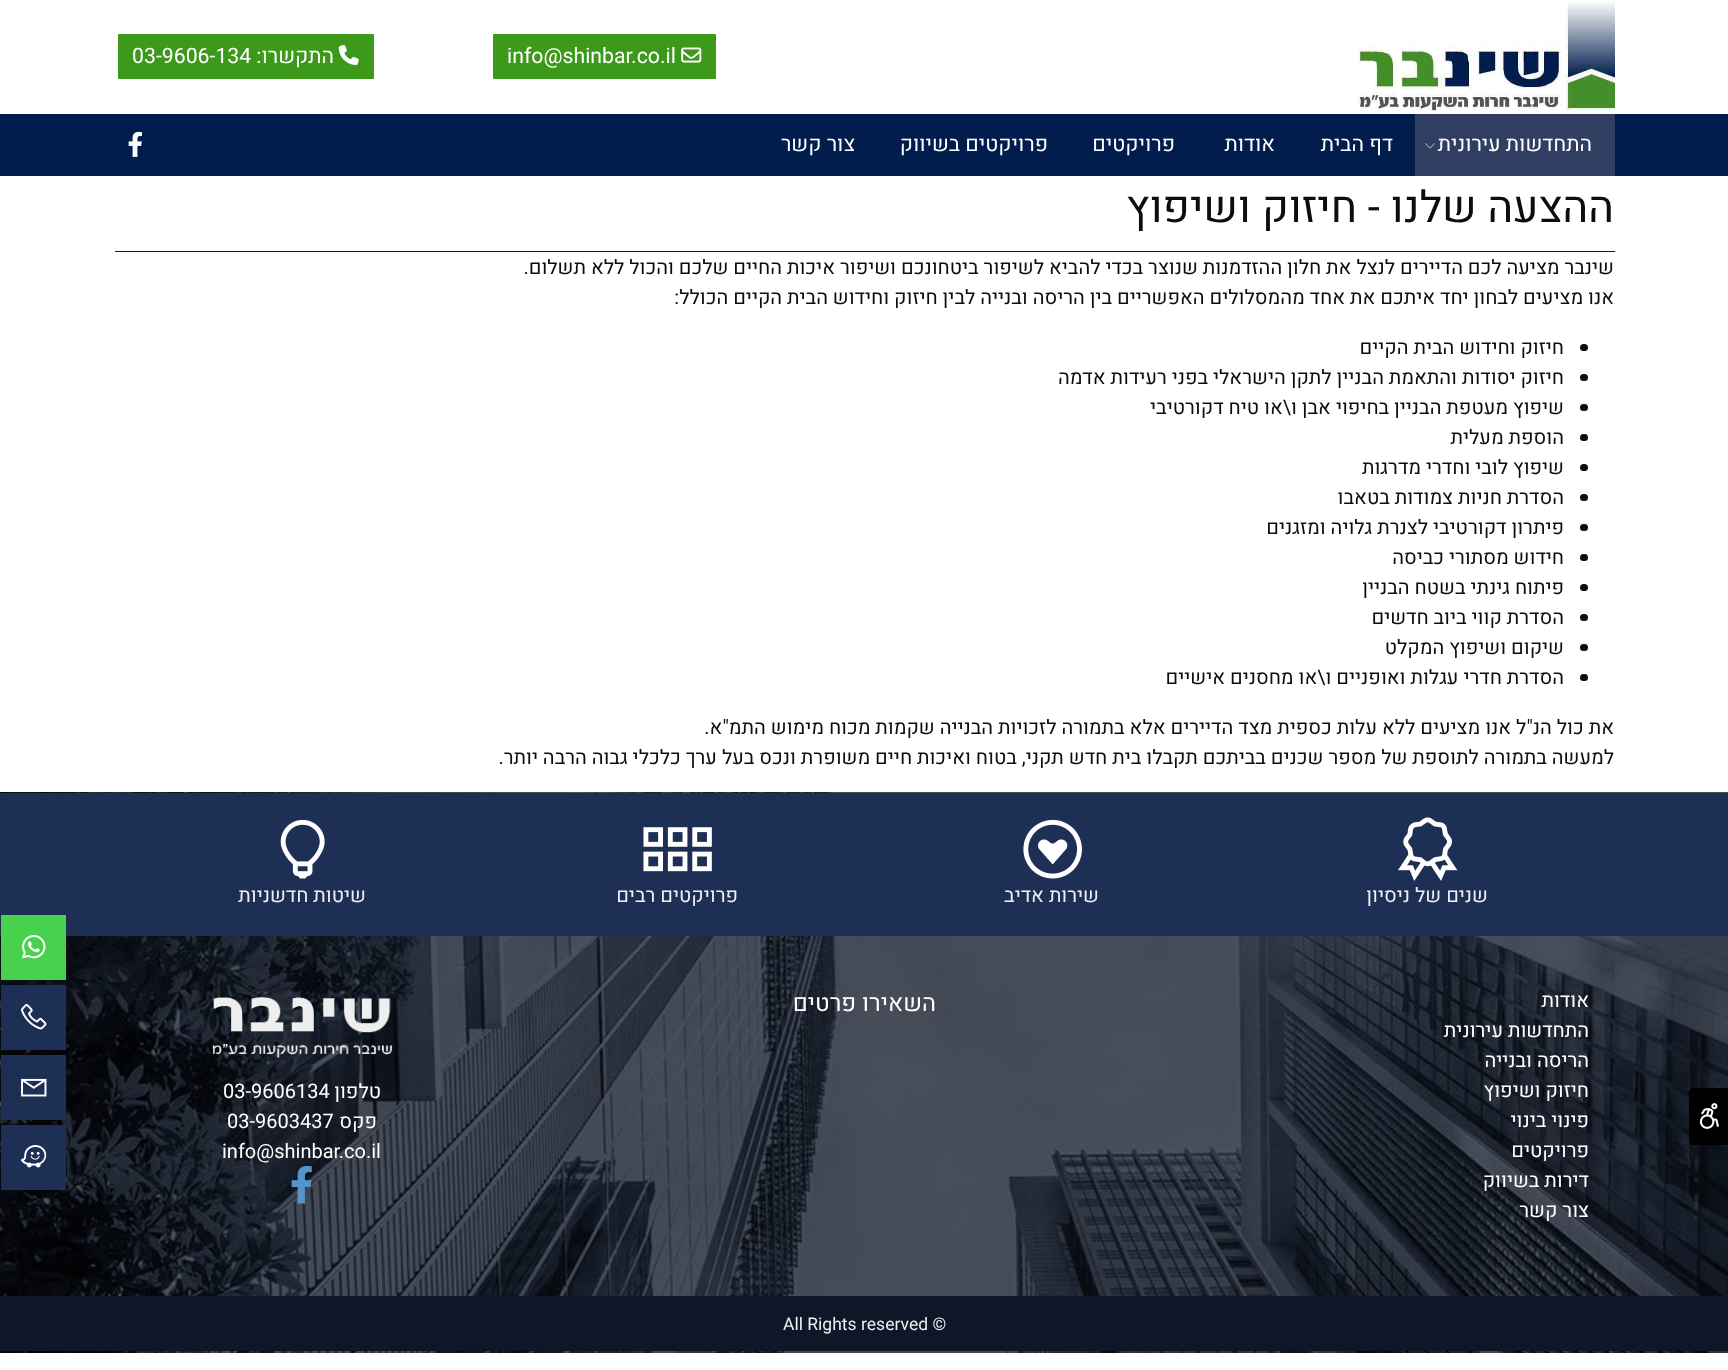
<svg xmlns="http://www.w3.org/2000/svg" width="1728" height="1370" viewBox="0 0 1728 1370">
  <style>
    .t1 { font: 21.25px Heebo; fill: #fff; }
    .t2 { font: 21.25px Heebo; direction: rtl; fill: #fff; }
    .t3 { font: 43.75px Heebo; direction: rtl; fill: #0d0d0d; }
    .t4 { font: 20px Heebo; direction: rtl; fill: #0d0d0d; }
    .t5 { font: 20px Heebo; direction: rtl; fill: #ecf0f1; }
    .t6 { font: 20px Heebo; direction: rtl; fill: #fff; }
    .t7 { font: 23.75px Heebo; direction: rtl; fill: #fff; }
    .t8 { font: 20px Heebo; fill: #fff; }
    .t9 { font: 17.5px Heebo; fill: #ecf0f1; }
  </style>
  <rect width="100%" height="100%" fill="#fff"/>
  <image x="1357" y="1" width="258" height="113" href="images/1.png"/>
  <rect x="493" y="34" width="223" height="45" rx="1" fill="#3c9919"/>
  <image x="681" y="47" width="21" height="16" href="images/2.png"/>
  <text x="507" y="63" class="t1">info@shinbar.co.il</text>
  <rect x="118" y="34" width="256" height="45" rx="1" fill="#3c9919"/>
  <image x="338" y="45" width="21" height="20" href="images/3.png"/>
  <text x="334" y="63" class="t2">התקשרו:</text>
  <text x="132" y="63" class="t1">03-9606-134</text>
  <rect x="0" y="114" width="1728" height="62" fill="#011d4d"/>
  <rect x="1415" y="114" width="200" height="62" fill="#303f61"/>
  <text x="1592" y="151" class="t2">התחדשות עירונית</text>
  <image x="1425" y="143" width="10" height="6" href="images/4.png"/>
  <text x="1393" y="151" class="t2">דף הבית</text>
  <text x="1275" y="151" class="t2">אודות</text>
  <text x="1175" y="151" class="t2">פרויקטים</text>
  <text x="1048" y="151" class="t2">פרויקטים בשיווק</text>
  <text x="855" y="151" class="t2">צור קשר</text>
  <image x="128" y="131" width="14" height="26" href="images/5.png"/>
  <rect x="115" y="251" width="1500" height="1" fill="#011d4d"/>
  <text x="1614" y="222" class="t3">ההצעה שלנו - חיזוק ושיפוץ</text>
  <text x="1614" y="274" class="t4">שינבר מציעה לכם הדיירים לנצל את חלון ההזדמנות שנוצר בכדי להביא לשיפור ביטחונכם ושיפור איכות החיים שלכם והכול ללא תשלום.</text>
  <text x="1614" y="304" class="t4">אנו מציעים לבחון יחד איתכם את אחד מהמסלולים האפשריים בין הריסה ובנייה לבין חיזוק וחידוש הבית הקיים הכולל:</text>
  <rect x="1580" y="344" width="8" height="7" rx="3.5" fill="#0d0d0d"/>
  <text x="1564" y="354" class="t4">חיזוק וחידוש הבית הקיים</text>
  <rect x="1580" y="374" width="8" height="7" rx="3.5" fill="#0d0d0d"/>
  <text x="1564" y="384" class="t4">חיזוק יסודות והתאמת הבניין לתקן הישראלי בפני רעידות אדמה</text>
  <rect x="1580" y="404" width="8" height="7" rx="3.5" fill="#0d0d0d"/>
  <text x="1564" y="414" class="t4">שיפוץ מעטפת הבניין בחיפוי אבן ו\או טיח דקורטיבי</text>
  <rect x="1580" y="434" width="8" height="7" rx="3.5" fill="#0d0d0d"/>
  <text x="1564" y="444" class="t4">הוספת מעלית</text>
  <rect x="1580" y="464" width="8" height="7" rx="3.5" fill="#0d0d0d"/>
  <text x="1564" y="474" class="t4">שיפוץ לובי וחדרי מדרגות</text>
  <rect x="1580" y="494" width="8" height="7" rx="3.5" fill="#0d0d0d"/>
  <text x="1564" y="504" class="t4">הסדרת חניות צמודות בטאבו</text>
  <rect x="1580" y="524" width="8" height="7" rx="3.5" fill="#0d0d0d"/>
  <text x="1564" y="534" class="t4">פיתרון דקורטיבי לצנרת גלויה ומזגנים</text>
  <rect x="1580" y="554" width="8" height="7" rx="3.5" fill="#0d0d0d"/>
  <text x="1564" y="564" class="t4">חידוש מסתורי כביסה</text>
  <rect x="1580" y="584" width="8" height="7" rx="3.5" fill="#0d0d0d"/>
  <text x="1564" y="594" class="t4">פיתוח גינתי בשטח הבניין</text>
  <rect x="1580" y="614" width="8" height="7" rx="3.5" fill="#0d0d0d"/>
  <text x="1564" y="624" class="t4">הסדרת קווי ביוב חדשים</text>
  <rect x="1580" y="644" width="8" height="7" rx="3.5" fill="#0d0d0d"/>
  <text x="1564" y="654" class="t4">שיקום ושיפוץ המקלט</text>
  <rect x="1580" y="674" width="8" height="7" rx="3.5" fill="#0d0d0d"/>
  <text x="1564" y="684" class="t4">הסדרת חדרי עגלות ואופניים ו\או מחסנים אישיים</text>
  <text x="1614" y="734" class="t4">את כול הנ"ל אנו מציעים ללא עלות כספית מצד הדיירים אלא בתמורה לזכויות הבנייה שקמות מכוח מימוש התמ"א.</text>
  <text x="1614" y="764" class="t4">למעשה בתמורה לתוספת של מספר שכנים בביתכם תקבלו בית חדש תקני, בטוח ואיכות חיים משופרת ונכס בעל ערך כלכלי גבוה הרבה יותר.</text>
  <image x="0" y="792" width="1728" height="561" href="images/7.png"/>
  <path d="M1693 1088H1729V1145H1693C1691 1145 1689 1143 1689 1141V1092C1689 1090 1691 1088 1693 1088Z" fill="#000"/>
  <image x="1699" y="1103" width="20" height="26" href="images/6.png"/>
  <rect x="0" y="793" width="1728" height="143" fill="#1e2f55"/>
  <image x="1398" y="817" width="60" height="64" href="images/8.png"/>
  <text x="1488" y="902" class="t5">שנים של ניסיון</text>
  <image x="1023" y="819" width="59" height="60" href="images/9.png"/>
  <text x="1099" y="902" class="t5">שירות אדיב</text>
  <image x="643" y="827" width="69" height="45" href="images/10.png"/>
  <text x="738" y="902" class="t5">פרויקטים רבים</text>
  <image x="280" y="819" width="45" height="60" href="images/11.png"/>
  <text x="366" y="902" class="t5">שיטות חדשניות</text>
  <text x="1589" y="1007" class="t6">אודות</text>
  <text x="1589" y="1037" class="t6">התחדשות עירונית</text>
  <text x="1589" y="1067" class="t6">הריסה ובנייה</text>
  <text x="1589" y="1097" class="t6">חיזוק ושיפוץ</text>
  <text x="1589" y="1127" class="t6">פינוי בינוי</text>
  <text x="1589" y="1157" class="t6">פרויקטים</text>
  <text x="1589" y="1187" class="t6">דירות בשיווק</text>
  <text x="1589" y="1217" class="t6">צור קשר</text>
  <text x="936" y="1011" class="t7">השאירו פרטים</text>
  <image x="212" y="997" width="181" height="61" href="images/12.png"/>
  <text x="381" y="1098" class="t6">טלפון</text>
  <text x="223" y="1098" class="t8">03-9606134</text>
  <text x="377" y="1128" class="t6">פקס</text>
  <text x="227" y="1128" class="t8">03-9603437</text>
  <text x="222" y="1158" class="t8">info@shinbar.co.il</text>
  <image x="291" y="1165" width="21" height="39" href="images/13.png"/>
  <rect x="0" y="1296" width="1728" height="55" fill="#0e1627"/>
  <text x="783" y="1330" class="t9">All Rights reserved ©</text>
  <rect x="1" y="915" width="65" height="65" fill="#47d14d"/>
  <image x="22" y="935" width="24" height="24" href="images/14.png"/>
  <rect x="1" y="985" width="65" height="65" fill="#1e2f55"/>
  <image x="21" y="1004" width="26" height="26" href="images/15.png"/>
  <rect x="1" y="1055" width="65" height="65" fill="#1e2f55"/>
  <image x="21" y="1078" width="26" height="19" href="images/16.png"/>
  <rect x="1" y="1125" width="65" height="65" fill="#1e2f55"/>
  <image x="21" y="1145" width="26" height="23" href="images/17.png"/>
</svg>
